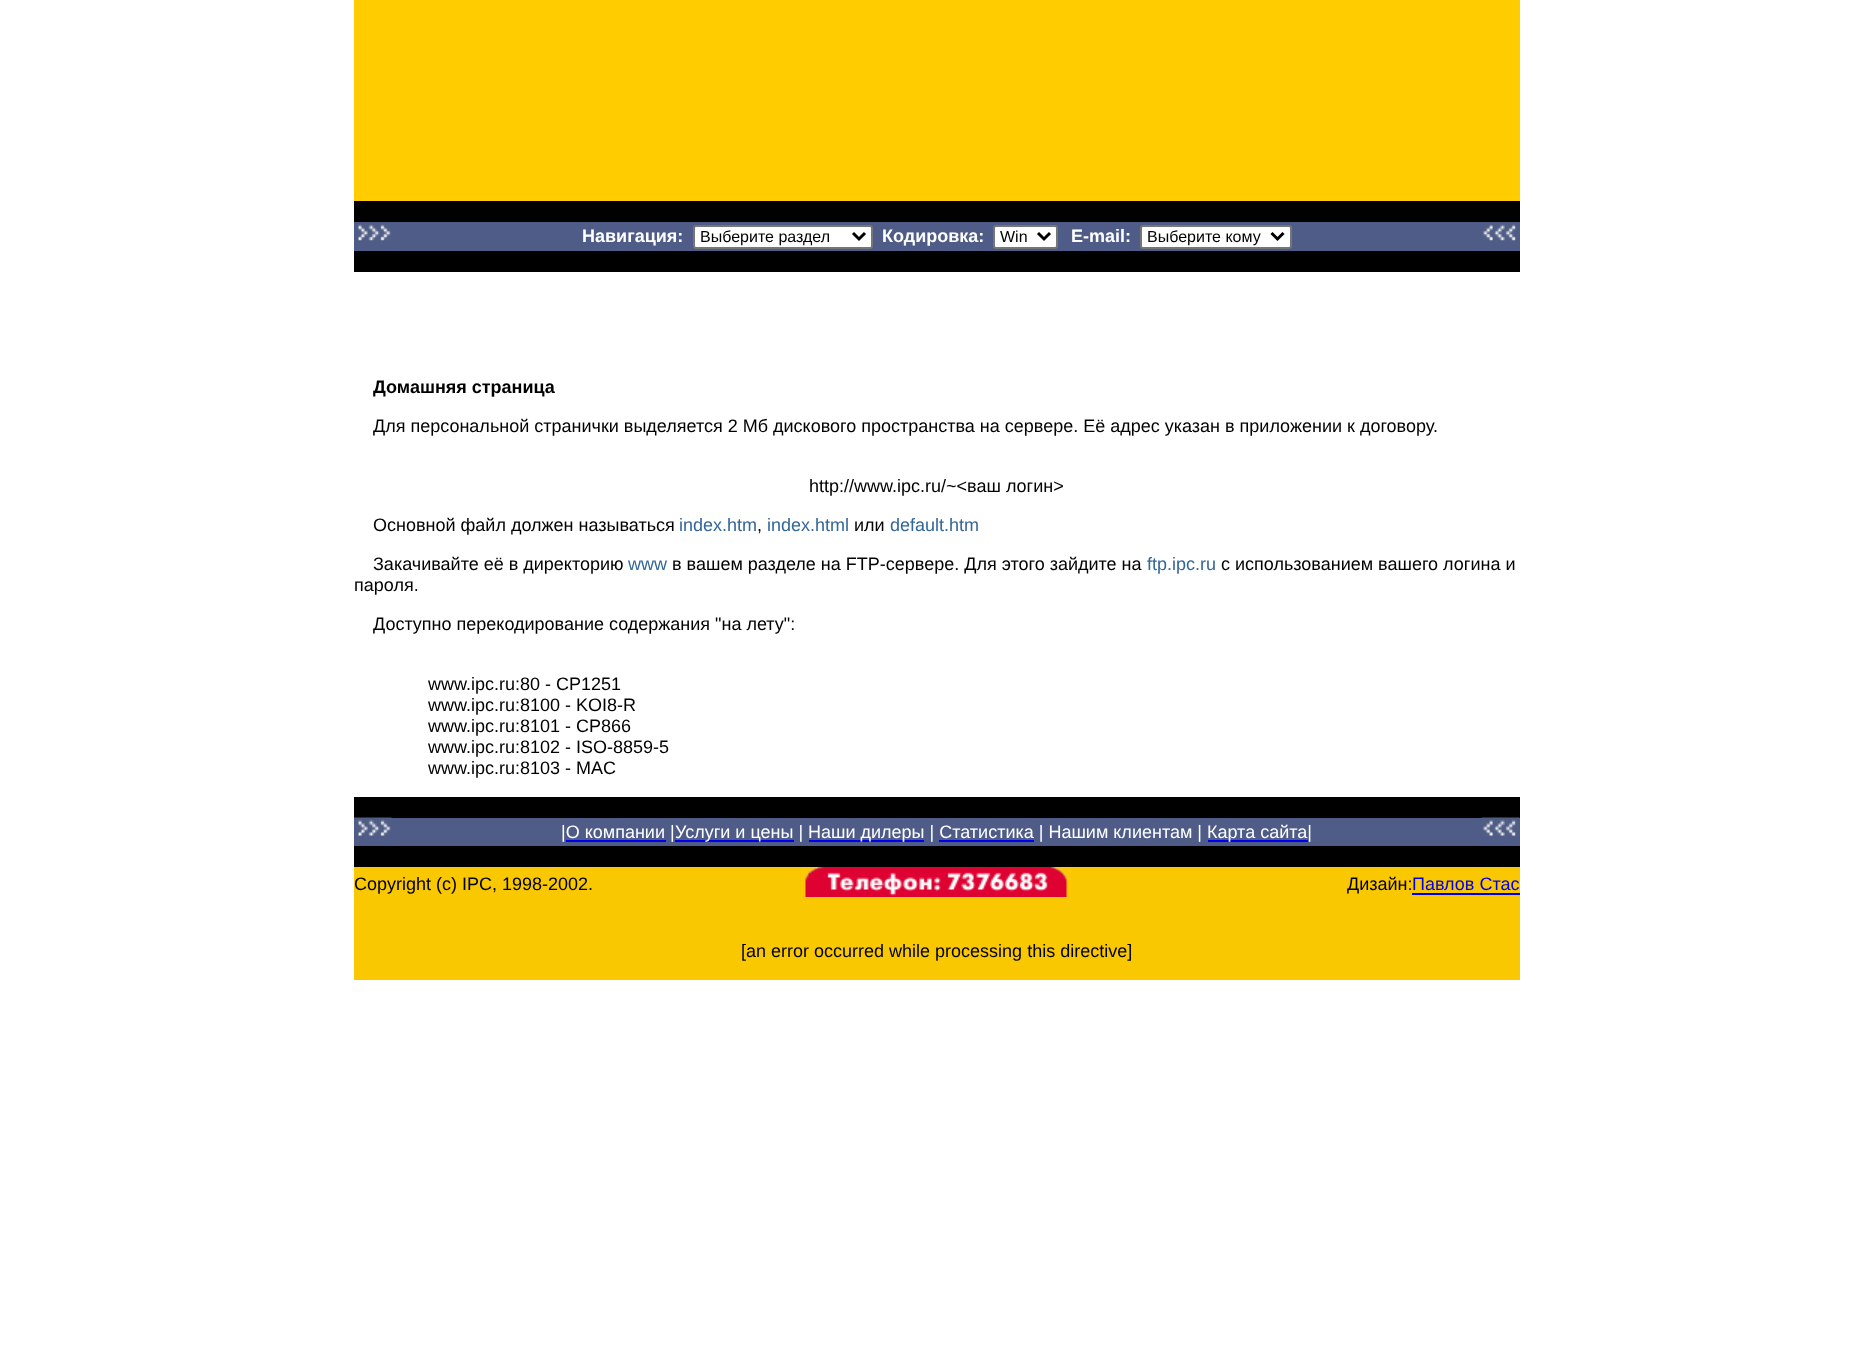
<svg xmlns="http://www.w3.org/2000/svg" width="1873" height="1359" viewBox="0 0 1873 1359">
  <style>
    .t1 { font: bold 18px Liberation Sans; fill: #fff; }
    .t2 { font: 16px Liberation Sans; fill: #000; }
    .t3 { font: bold 18px Liberation Sans; fill: #000; }
    .t4 { font: 18px Liberation Sans; fill: #000; }
    .t5 { font: 18px Liberation Sans; fill: #369; }
    .t6 { font: 18px Liberation Sans; fill: #fff; }
    .t7 { font: 18px Liberation Sans; fill: #00e; }
  </style>
  <rect width="100%" height="100%" fill="#fff"/>
  <rect x="354" y="0" width="1166" height="201" fill="#fc0"/>
  <rect x="354" y="201" width="1166" height="21" fill="#000"/>
  <rect x="354" y="222" width="1166" height="29" fill="#505c88"/>
  <image x="358" y="224" width="33" height="17" href="images/1.png"/>
  <text x="582" y="242" class="t1">Навигация:</text>
  <rect x="694" y="226" width="178" height="22" rx="2" fill="#fff" stroke="#767676" stroke-width="2"/>
  <path d="M853 233L859 239L865 233" fill="none" stroke="#000" stroke-width="3"/>
  <text x="700" y="242" class="t2">Выберите раздел</text>
  <text x="882" y="242" class="t1">Кодировка:</text>
  <rect x="994" y="226" width="63" height="22" rx="2" fill="#fff" stroke="#767676" stroke-width="2"/>
  <path d="M1038 233L1044 239L1050 233" fill="none" stroke="#000" stroke-width="3"/>
  <text x="1000" y="242" class="t2">Win</text>
  <text x="1071" y="242" class="t1">E-mail:</text>
  <rect x="1141" y="226" width="150" height="22" rx="2" fill="#fff" stroke="#767676" stroke-width="2"/>
  <path d="M1271.5 233L1277.5 239L1283.5 233" fill="none" stroke="#000" stroke-width="3"/>
  <text x="1147" y="242" class="t2">Выберите кому</text>
  <image x="1483" y="224" width="33" height="17" href="images/2.png"/>
  <rect x="354" y="251" width="1166" height="21" fill="#000"/>
  <text x="373" y="393" class="t3">Домашняя страница</text>
  <text x="373" y="432" class="t4">Для персональной странички выделяется 2 Мб дискового пространства на сервере. Её адрес указан в приложении к договору.</text>
  <text x="809" y="492" class="t4">http://www.ipc.ru/~&lt;ваш логин&gt;</text>
  <text x="373" y="531" class="t4">Основной файл должен называться</text>
  <text x="679" y="531" class="t5">index.htm</text>
  <text x="757" y="531" class="t4">,</text>
  <text x="767" y="531" class="t5">index.html</text>
  <text x="854" y="531" class="t4">или</text>
  <text x="890" y="531" class="t5">default.htm</text>
  <text x="373" y="570" class="t4">Закачивайте её в директорию</text>
  <text x="628" y="570" class="t5">www</text>
  <text x="672" y="570" class="t4">в вашем разделе на FTP-сервере. Для этого зайдите на</text>
  <text x="1147" y="570" class="t5">ftp.ipc.ru</text>
  <text x="1221" y="570" class="t4">с использованием вашего логина и</text>
  <text x="354" y="591" class="t4">пароля.</text>
  <text x="373" y="630" class="t4">Доступно перекодирование содержания "на лету":</text>
  <text x="428" y="690" class="t4">www.ipc.ru:80 - CP1251</text>
  <text x="428" y="711" class="t4">www.ipc.ru:8100 - KOI8-R</text>
  <text x="428" y="732" class="t4">www.ipc.ru:8101 - CP866</text>
  <text x="428" y="753" class="t4">www.ipc.ru:8102 - ISO-8859-5</text>
  <text x="428" y="774" class="t4">www.ipc.ru:8103 - MAC</text>
  <rect x="354" y="797" width="1166" height="21" fill="#000"/>
  <rect x="354" y="818" width="1166" height="28" fill="#505c88"/>
  <image x="354" y="817" width="38" height="19" href="images/3.png"/>
  <text x="561" y="838" class="t6">|О компании |</text>
  <rect x="675" y="840" width="119" height="2" fill="#00e"/>
  <text x="675" y="838" class="t6">Услуги и цены |</text>
  <rect x="809" y="840" width="115" height="2" fill="#00e"/>
  <text x="808" y="838" class="t6">Наши дилеры | Статистика | Нашим клиентам |</text>
  <rect x="1208" y="840" width="100" height="2" fill="#00e"/>
  <text x="1207" y="838" class="t6">Карта сайта|</text>
  <rect x="566" y="840" width="100" height="2" fill="#00e"/>
  <rect x="939" y="840" width="95" height="2" fill="#00e"/>
  <image x="1482" y="817" width="38" height="19" href="images/4.png"/>
  <rect x="354" y="846" width="1166" height="21" fill="#000"/>
  <rect x="354" y="867" width="1166" height="113" fill="#fac800"/>
  <text x="354" y="890" class="t4">Copyright (c) IPC, 1998-2002.</text>
  <image x="801" y="867" width="270" height="30" href="images/5.png"/>
  <text x="1347" y="890" class="t4">Дизайн:</text>
  <text x="1412" y="890" class="t7">Павлов Стас</text>
  <rect x="1412" y="893" width="108" height="2" fill="#00e"/>
  <text x="741" y="957" class="t4">[an error occurred while processing this directive]</text>
</svg>
